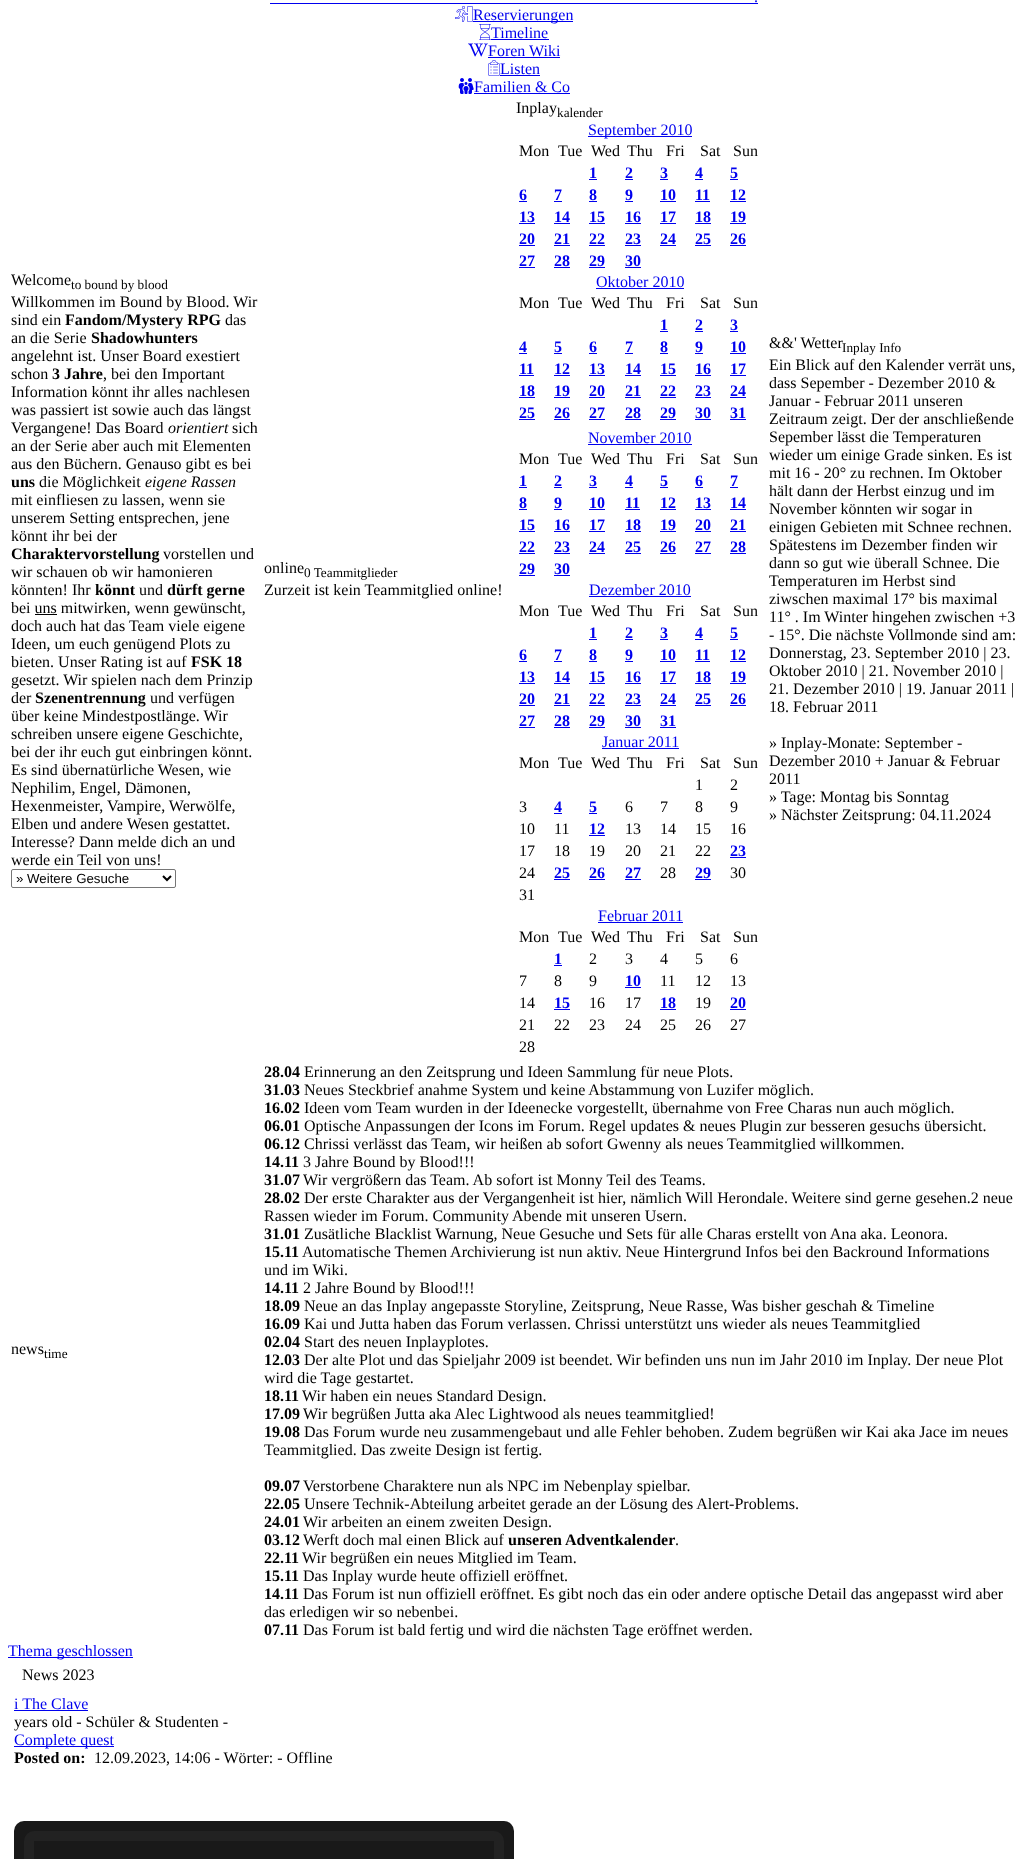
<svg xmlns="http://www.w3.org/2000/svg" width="1028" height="1859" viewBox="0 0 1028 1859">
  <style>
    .t1 { font: 16px Liberation Serif; fill: #00e; }
    .t2 { font: 16px Liberation Serif; fill: #000; }
    .t3 { font: 13.25px Liberation Serif; fill: #000; }
    .t4 { font: bold 16px Liberation Serif; fill: #000; }
    .t5 { font: italic 16px Liberation Serif; fill: #000; }
    .t6 { font: 13.25px Liberation Sans; fill: #000; }
    .t7 { font: bold 16px Liberation Serif; fill: #00e; }
  </style>
  <rect width="100%" height="100%" fill="#fff"/>
  <text x="754" y="2" class="t1">.</text>
  <rect x="270" y="3" width="488" height="1" fill="#00e"/>
  <image x="455" y="6" width="18" height="16" href="images/1.png"/>
  <rect x="473" y="21" width="100" height="1" fill="#00e"/>
  <text x="473" y="20" class="t1">Reservierungen</text>
  <image x="479" y="24" width="12" height="16" href="images/2.png"/>
  <text x="491" y="38" class="t1">Timeline</text>
  <rect x="491" y="39" width="58" height="1" fill="#00e"/>
  <image x="468" y="43" width="20" height="14" href="images/3.png"/>
  <text x="488" y="56" class="t1">Foren Wiki</text>
  <rect x="488" y="57" width="72" height="1" fill="#00e"/>
  <image x="488" y="60" width="12" height="16" href="images/4.png"/>
  <text x="500" y="74" class="t1">Listen</text>
  <rect x="500" y="75" width="40" height="1" fill="#00e"/>
  <image x="458" y="78" width="16" height="16" href="images/5.png"/>
  <text x="474" y="92" class="t1">Familien &amp; Co</text>
  <rect x="474" y="93" width="96" height="1" fill="#00e"/>
  <text x="11" y="285" class="t2">Welcome</text>
  <text x="71" y="289" class="t3">to bound by blood</text>
  <text x="11" y="307" class="t2">Willkommen im Bound by Blood. Wir</text>
  <text x="11" y="325" class="t2">sind ein</text>
  <text x="65" y="325" class="t4">Fandom/Mystery RPG</text>
  <text x="225" y="325" class="t2">das</text>
  <text x="11" y="343" class="t2">an die Serie</text>
  <text x="91" y="343" class="t4">Shadowhunters</text>
  <text x="11" y="361" class="t2">angelehnt ist. Unser Board exestiert</text>
  <text x="11" y="379" class="t2">schon</text>
  <text x="52" y="379" class="t4">3 Jahre</text>
  <text x="103" y="379" class="t2">, bei den Important</text>
  <text x="11" y="397" class="t2">Information könnt ihr alles nachlesen</text>
  <text x="11" y="415" class="t2">was passiert ist sowie auch das längst</text>
  <text x="11" y="433" class="t2">Vergangene! Das Board</text>
  <text x="168" y="433" class="t5">orientiert</text>
  <text x="232" y="433" class="t2">sich</text>
  <text x="11" y="451" class="t2">an der Serie aber auch mit Elementen</text>
  <text x="11" y="469" class="t2">aus den Büchern. Genauso gibt es bei</text>
  <text x="11" y="487" class="t4">uns</text>
  <text x="39" y="487" class="t2">die Möglichkeit</text>
  <text x="145" y="487" class="t5">eigene Rassen</text>
  <text x="11" y="505" class="t2">mit einfliesen zu lassen, wenn sie</text>
  <text x="11" y="523" class="t2">unserem Setting entsprechen, jene</text>
  <text x="11" y="541" class="t2">könnt ihr bei der</text>
  <text x="11" y="559" class="t4">Charaktervorstellung</text>
  <text x="163" y="559" class="t2">vorstellen und</text>
  <text x="11" y="577" class="t2">wir schauen ob wir hamonieren</text>
  <text x="11" y="595" class="t2">könnten! Ihr</text>
  <text x="95" y="595" class="t4">könnt</text>
  <text x="139" y="595" class="t2">und</text>
  <text x="167" y="595" class="t4">dürft gerne</text>
  <text x="11" y="613" class="t2">bei uns mitwirken, wenn gewünscht,</text>
  <rect x="35" y="614" width="22" height="1" fill="#000"/>
  <text x="11" y="631" class="t2">doch auch hat das Team viele eigene</text>
  <text x="11" y="649" class="t2">Ideen, um euch genügend Plots zu</text>
  <text x="11" y="667" class="t2">bieten. Unser Rating ist auf</text>
  <text x="191" y="667" class="t4">FSK 18</text>
  <text x="11" y="685" class="t2">gesetzt. Wir spielen nach dem Prinzip</text>
  <text x="11" y="703" class="t2">der</text>
  <text x="35" y="703" class="t4">Szenentrennung</text>
  <text x="150" y="703" class="t2">und verfügen</text>
  <text x="11" y="721" class="t2">über keine Mindestpostlänge. Wir</text>
  <text x="11" y="739" class="t2">schreiben unsere eigene Geschichte,</text>
  <text x="11" y="757" class="t2">bei der ihr euch gut einbringen könnt.</text>
  <text x="11" y="775" class="t2">Es sind übernatürliche Wesen, wie</text>
  <text x="11" y="793" class="t2">Nephilim, Engel, Dämonen,</text>
  <text x="11" y="811" class="t2">Hexenmeister, Vampire, Werwölfe,</text>
  <text x="11" y="829" class="t2">Elben und andere Wesen gestattet.</text>
  <text x="11" y="847" class="t2">Interesse? Dann melde dich an und</text>
  <text x="11" y="865" class="t2">werde ein Teil von uns!</text>
  <rect x="11.5" y="869.5" width="164" height="18" rx="1.5" fill="none" stroke="#767676"/>
  <path d="M163 876L167 880L171 876" fill="none" stroke="#000" stroke-width="2"/>
  <text x="16" y="883" class="t6">» Weitere Gesuche</text>
  <text x="264" y="573" class="t2">online</text>
  <text x="304" y="577" class="t3">0 Teammitglieder</text>
  <text x="264" y="595" class="t2">Zurzeit ist kein Teammitglied online!</text>
  <text x="516" y="113" class="t2">Inplay</text>
  <text x="557" y="117" class="t3">kalender</text>
  <rect x="588" y="136" width="104" height="1" fill="#00e"/>
  <text x="588" y="135" class="t1">September 2010</text>
  <text x="519" y="156" class="t2">Mon</text>
  <text x="558" y="156" class="t2">Tue</text>
  <text x="591" y="156" class="t2">Wed</text>
  <text x="627" y="156" class="t2">Thu</text>
  <text x="666" y="156" class="t2">Fri</text>
  <text x="700" y="156" class="t2">Sat</text>
  <text x="733" y="156" class="t2">Sun</text>
  <text x="589" y="178" class="t7">1</text>
  <rect x="589" y="179" width="8" height="1" fill="#00e"/>
  <text x="625" y="178" class="t7">2</text>
  <rect x="625" y="179" width="8" height="1" fill="#00e"/>
  <text x="660" y="178" class="t7">3</text>
  <rect x="660" y="179" width="8" height="1" fill="#00e"/>
  <text x="695" y="178" class="t7">4</text>
  <rect x="695" y="179" width="8" height="1" fill="#00e"/>
  <text x="730" y="178" class="t7">5</text>
  <rect x="730" y="179" width="8" height="1" fill="#00e"/>
  <text x="519" y="200" class="t7">6</text>
  <rect x="519" y="201" width="8" height="1" fill="#00e"/>
  <text x="554" y="200" class="t7">7</text>
  <rect x="554" y="201" width="8" height="1" fill="#00e"/>
  <text x="589" y="200" class="t7">8</text>
  <rect x="589" y="201" width="8" height="1" fill="#00e"/>
  <text x="625" y="200" class="t7">9</text>
  <rect x="625" y="201" width="8" height="1" fill="#00e"/>
  <text x="660" y="200" class="t7">10</text>
  <rect x="660" y="201" width="16" height="1" fill="#00e"/>
  <text x="695" y="200" class="t7">11</text>
  <rect x="695" y="201" width="15" height="1" fill="#00e"/>
  <text x="730" y="200" class="t7">12</text>
  <rect x="730" y="201" width="16" height="1" fill="#00e"/>
  <text x="519" y="222" class="t7">13</text>
  <rect x="519" y="223" width="16" height="1" fill="#00e"/>
  <text x="554" y="222" class="t7">14</text>
  <rect x="554" y="223" width="16" height="1" fill="#00e"/>
  <text x="589" y="222" class="t7">15</text>
  <rect x="589" y="223" width="16" height="1" fill="#00e"/>
  <text x="625" y="222" class="t7">16</text>
  <rect x="625" y="223" width="16" height="1" fill="#00e"/>
  <text x="660" y="222" class="t7">17</text>
  <rect x="660" y="223" width="16" height="1" fill="#00e"/>
  <text x="695" y="222" class="t7">18</text>
  <rect x="695" y="223" width="16" height="1" fill="#00e"/>
  <text x="730" y="222" class="t7">19</text>
  <rect x="730" y="223" width="16" height="1" fill="#00e"/>
  <text x="519" y="244" class="t7">20</text>
  <rect x="519" y="245" width="16" height="1" fill="#00e"/>
  <text x="554" y="244" class="t7">21</text>
  <rect x="554" y="245" width="16" height="1" fill="#00e"/>
  <text x="589" y="244" class="t7">22</text>
  <rect x="589" y="245" width="16" height="1" fill="#00e"/>
  <text x="625" y="244" class="t7">23</text>
  <rect x="625" y="245" width="16" height="1" fill="#00e"/>
  <text x="660" y="244" class="t7">24</text>
  <rect x="660" y="245" width="16" height="1" fill="#00e"/>
  <text x="695" y="244" class="t7">25</text>
  <rect x="695" y="245" width="16" height="1" fill="#00e"/>
  <text x="730" y="244" class="t7">26</text>
  <rect x="730" y="245" width="16" height="1" fill="#00e"/>
  <text x="519" y="266" class="t7">27</text>
  <rect x="519" y="267" width="16" height="1" fill="#00e"/>
  <text x="554" y="266" class="t7">28</text>
  <rect x="554" y="267" width="16" height="1" fill="#00e"/>
  <text x="589" y="266" class="t7">29</text>
  <rect x="589" y="267" width="16" height="1" fill="#00e"/>
  <text x="625" y="266" class="t7">30</text>
  <rect x="625" y="267" width="16" height="1" fill="#00e"/>
  <text x="596" y="287" class="t1">Oktober 2010</text>
  <rect x="596" y="288" width="88" height="1" fill="#00e"/>
  <text x="519" y="308" class="t2">Mon</text>
  <text x="558" y="308" class="t2">Tue</text>
  <text x="591" y="308" class="t2">Wed</text>
  <text x="627" y="308" class="t2">Thu</text>
  <text x="666" y="308" class="t2">Fri</text>
  <text x="700" y="308" class="t2">Sat</text>
  <text x="733" y="308" class="t2">Sun</text>
  <text x="660" y="330" class="t7">1</text>
  <rect x="660" y="331" width="8" height="1" fill="#00e"/>
  <text x="695" y="330" class="t7">2</text>
  <rect x="695" y="331" width="8" height="1" fill="#00e"/>
  <text x="730" y="330" class="t7">3</text>
  <rect x="730" y="331" width="8" height="1" fill="#00e"/>
  <text x="519" y="352" class="t7">4</text>
  <rect x="519" y="353" width="8" height="1" fill="#00e"/>
  <text x="554" y="352" class="t7">5</text>
  <rect x="554" y="353" width="8" height="1" fill="#00e"/>
  <text x="589" y="352" class="t7">6</text>
  <rect x="589" y="353" width="8" height="1" fill="#00e"/>
  <text x="625" y="352" class="t7">7</text>
  <rect x="625" y="353" width="8" height="1" fill="#00e"/>
  <text x="660" y="352" class="t7">8</text>
  <rect x="660" y="353" width="8" height="1" fill="#00e"/>
  <text x="695" y="352" class="t7">9</text>
  <rect x="695" y="353" width="8" height="1" fill="#00e"/>
  <text x="730" y="352" class="t7">10</text>
  <rect x="730" y="353" width="16" height="1" fill="#00e"/>
  <text x="519" y="374" class="t7">11</text>
  <rect x="519" y="375" width="15" height="1" fill="#00e"/>
  <text x="554" y="374" class="t7">12</text>
  <rect x="554" y="375" width="16" height="1" fill="#00e"/>
  <text x="589" y="374" class="t7">13</text>
  <rect x="589" y="375" width="16" height="1" fill="#00e"/>
  <text x="625" y="374" class="t7">14</text>
  <rect x="625" y="375" width="16" height="1" fill="#00e"/>
  <text x="660" y="374" class="t7">15</text>
  <rect x="660" y="375" width="16" height="1" fill="#00e"/>
  <text x="695" y="374" class="t7">16</text>
  <rect x="695" y="375" width="16" height="1" fill="#00e"/>
  <text x="730" y="374" class="t7">17</text>
  <rect x="730" y="375" width="16" height="1" fill="#00e"/>
  <text x="519" y="396" class="t7">18</text>
  <rect x="519" y="397" width="16" height="1" fill="#00e"/>
  <text x="554" y="396" class="t7">19</text>
  <rect x="554" y="397" width="16" height="1" fill="#00e"/>
  <text x="589" y="396" class="t7">20</text>
  <rect x="589" y="397" width="16" height="1" fill="#00e"/>
  <text x="625" y="396" class="t7">21</text>
  <rect x="625" y="397" width="16" height="1" fill="#00e"/>
  <text x="660" y="396" class="t7">22</text>
  <rect x="660" y="397" width="16" height="1" fill="#00e"/>
  <text x="695" y="396" class="t7">23</text>
  <rect x="695" y="397" width="16" height="1" fill="#00e"/>
  <text x="730" y="396" class="t7">24</text>
  <rect x="730" y="397" width="16" height="1" fill="#00e"/>
  <text x="519" y="418" class="t7">25</text>
  <rect x="519" y="419" width="16" height="1" fill="#00e"/>
  <text x="554" y="418" class="t7">26</text>
  <rect x="554" y="419" width="16" height="1" fill="#00e"/>
  <text x="589" y="418" class="t7">27</text>
  <rect x="589" y="419" width="16" height="1" fill="#00e"/>
  <text x="625" y="418" class="t7">28</text>
  <rect x="625" y="419" width="16" height="1" fill="#00e"/>
  <text x="660" y="418" class="t7">29</text>
  <rect x="660" y="419" width="16" height="1" fill="#00e"/>
  <text x="695" y="418" class="t7">30</text>
  <rect x="695" y="419" width="16" height="1" fill="#00e"/>
  <text x="730" y="418" class="t7">31</text>
  <rect x="730" y="419" width="16" height="1" fill="#00e"/>
  <text x="588" y="443" class="t1">November 2010</text>
  <rect x="588" y="444" width="104" height="1" fill="#00e"/>
  <text x="519" y="464" class="t2">Mon</text>
  <text x="558" y="464" class="t2">Tue</text>
  <text x="591" y="464" class="t2">Wed</text>
  <text x="627" y="464" class="t2">Thu</text>
  <text x="666" y="464" class="t2">Fri</text>
  <text x="700" y="464" class="t2">Sat</text>
  <text x="733" y="464" class="t2">Sun</text>
  <text x="519" y="486" class="t7">1</text>
  <rect x="519" y="487" width="8" height="1" fill="#00e"/>
  <text x="554" y="486" class="t7">2</text>
  <rect x="554" y="487" width="8" height="1" fill="#00e"/>
  <text x="589" y="486" class="t7">3</text>
  <rect x="589" y="487" width="8" height="1" fill="#00e"/>
  <text x="625" y="486" class="t7">4</text>
  <rect x="625" y="487" width="8" height="1" fill="#00e"/>
  <text x="660" y="486" class="t7">5</text>
  <rect x="660" y="487" width="8" height="1" fill="#00e"/>
  <text x="695" y="486" class="t7">6</text>
  <rect x="695" y="487" width="8" height="1" fill="#00e"/>
  <text x="730" y="486" class="t7">7</text>
  <rect x="730" y="487" width="8" height="1" fill="#00e"/>
  <text x="519" y="508" class="t7">8</text>
  <rect x="519" y="509" width="8" height="1" fill="#00e"/>
  <text x="554" y="508" class="t7">9</text>
  <rect x="554" y="509" width="8" height="1" fill="#00e"/>
  <text x="589" y="508" class="t7">10</text>
  <rect x="589" y="509" width="16" height="1" fill="#00e"/>
  <text x="625" y="508" class="t7">11</text>
  <rect x="625" y="509" width="15" height="1" fill="#00e"/>
  <text x="660" y="508" class="t7">12</text>
  <rect x="660" y="509" width="16" height="1" fill="#00e"/>
  <text x="695" y="508" class="t7">13</text>
  <rect x="695" y="509" width="16" height="1" fill="#00e"/>
  <text x="730" y="508" class="t7">14</text>
  <rect x="730" y="509" width="16" height="1" fill="#00e"/>
  <text x="519" y="530" class="t7">15</text>
  <rect x="519" y="531" width="16" height="1" fill="#00e"/>
  <text x="554" y="530" class="t7">16</text>
  <rect x="554" y="531" width="16" height="1" fill="#00e"/>
  <text x="589" y="530" class="t7">17</text>
  <rect x="589" y="531" width="16" height="1" fill="#00e"/>
  <text x="625" y="530" class="t7">18</text>
  <rect x="625" y="531" width="16" height="1" fill="#00e"/>
  <text x="660" y="530" class="t7">19</text>
  <rect x="660" y="531" width="16" height="1" fill="#00e"/>
  <text x="695" y="530" class="t7">20</text>
  <rect x="695" y="531" width="16" height="1" fill="#00e"/>
  <text x="730" y="530" class="t7">21</text>
  <rect x="730" y="531" width="16" height="1" fill="#00e"/>
  <text x="519" y="552" class="t7">22</text>
  <rect x="519" y="553" width="16" height="1" fill="#00e"/>
  <text x="554" y="552" class="t7">23</text>
  <rect x="554" y="553" width="16" height="1" fill="#00e"/>
  <text x="589" y="552" class="t7">24</text>
  <rect x="589" y="553" width="16" height="1" fill="#00e"/>
  <text x="625" y="552" class="t7">25</text>
  <rect x="625" y="553" width="16" height="1" fill="#00e"/>
  <text x="660" y="552" class="t7">26</text>
  <rect x="660" y="553" width="16" height="1" fill="#00e"/>
  <text x="695" y="552" class="t7">27</text>
  <rect x="695" y="553" width="16" height="1" fill="#00e"/>
  <text x="730" y="552" class="t7">28</text>
  <rect x="730" y="553" width="16" height="1" fill="#00e"/>
  <text x="519" y="574" class="t7">29</text>
  <rect x="519" y="575" width="16" height="1" fill="#00e"/>
  <text x="554" y="574" class="t7">30</text>
  <rect x="554" y="575" width="16" height="1" fill="#00e"/>
  <text x="589" y="595" class="t1">Dezember 2010</text>
  <rect x="589" y="596" width="102" height="1" fill="#00e"/>
  <text x="519" y="616" class="t2">Mon</text>
  <text x="558" y="616" class="t2">Tue</text>
  <text x="591" y="616" class="t2">Wed</text>
  <text x="627" y="616" class="t2">Thu</text>
  <text x="666" y="616" class="t2">Fri</text>
  <text x="700" y="616" class="t2">Sat</text>
  <text x="733" y="616" class="t2">Sun</text>
  <text x="589" y="638" class="t7">1</text>
  <rect x="589" y="639" width="8" height="1" fill="#00e"/>
  <text x="625" y="638" class="t7">2</text>
  <rect x="625" y="639" width="8" height="1" fill="#00e"/>
  <text x="660" y="638" class="t7">3</text>
  <rect x="660" y="639" width="8" height="1" fill="#00e"/>
  <text x="695" y="638" class="t7">4</text>
  <rect x="695" y="639" width="8" height="1" fill="#00e"/>
  <text x="730" y="638" class="t7">5</text>
  <rect x="730" y="639" width="8" height="1" fill="#00e"/>
  <text x="519" y="660" class="t7">6</text>
  <rect x="519" y="661" width="8" height="1" fill="#00e"/>
  <text x="554" y="660" class="t7">7</text>
  <rect x="554" y="661" width="8" height="1" fill="#00e"/>
  <text x="589" y="660" class="t7">8</text>
  <rect x="589" y="661" width="8" height="1" fill="#00e"/>
  <text x="625" y="660" class="t7">9</text>
  <rect x="625" y="661" width="8" height="1" fill="#00e"/>
  <text x="660" y="660" class="t7">10</text>
  <rect x="660" y="661" width="16" height="1" fill="#00e"/>
  <text x="695" y="660" class="t7">11</text>
  <rect x="695" y="661" width="15" height="1" fill="#00e"/>
  <text x="730" y="660" class="t7">12</text>
  <rect x="730" y="661" width="16" height="1" fill="#00e"/>
  <text x="519" y="682" class="t7">13</text>
  <rect x="519" y="683" width="16" height="1" fill="#00e"/>
  <text x="554" y="682" class="t7">14</text>
  <rect x="554" y="683" width="16" height="1" fill="#00e"/>
  <text x="589" y="682" class="t7">15</text>
  <rect x="589" y="683" width="16" height="1" fill="#00e"/>
  <text x="625" y="682" class="t7">16</text>
  <rect x="625" y="683" width="16" height="1" fill="#00e"/>
  <text x="660" y="682" class="t7">17</text>
  <rect x="660" y="683" width="16" height="1" fill="#00e"/>
  <text x="695" y="682" class="t7">18</text>
  <rect x="695" y="683" width="16" height="1" fill="#00e"/>
  <text x="730" y="682" class="t7">19</text>
  <rect x="730" y="683" width="16" height="1" fill="#00e"/>
  <text x="519" y="704" class="t7">20</text>
  <rect x="519" y="705" width="16" height="1" fill="#00e"/>
  <text x="554" y="704" class="t7">21</text>
  <rect x="554" y="705" width="16" height="1" fill="#00e"/>
  <text x="589" y="704" class="t7">22</text>
  <rect x="589" y="705" width="16" height="1" fill="#00e"/>
  <text x="625" y="704" class="t7">23</text>
  <rect x="625" y="705" width="16" height="1" fill="#00e"/>
  <text x="660" y="704" class="t7">24</text>
  <rect x="660" y="705" width="16" height="1" fill="#00e"/>
  <text x="695" y="704" class="t7">25</text>
  <rect x="695" y="705" width="16" height="1" fill="#00e"/>
  <text x="730" y="704" class="t7">26</text>
  <rect x="730" y="705" width="16" height="1" fill="#00e"/>
  <text x="519" y="726" class="t7">27</text>
  <rect x="519" y="727" width="16" height="1" fill="#00e"/>
  <text x="554" y="726" class="t7">28</text>
  <rect x="554" y="727" width="16" height="1" fill="#00e"/>
  <text x="589" y="726" class="t7">29</text>
  <rect x="589" y="727" width="16" height="1" fill="#00e"/>
  <text x="625" y="726" class="t7">30</text>
  <rect x="625" y="727" width="16" height="1" fill="#00e"/>
  <text x="660" y="726" class="t7">31</text>
  <rect x="660" y="727" width="16" height="1" fill="#00e"/>
  <text x="602" y="747" class="t1">Januar 2011</text>
  <rect x="602" y="748" width="77" height="1" fill="#00e"/>
  <text x="519" y="768" class="t2">Mon</text>
  <text x="558" y="768" class="t2">Tue</text>
  <text x="591" y="768" class="t2">Wed</text>
  <text x="627" y="768" class="t2">Thu</text>
  <text x="666" y="768" class="t2">Fri</text>
  <text x="700" y="768" class="t2">Sat</text>
  <text x="733" y="768" class="t2">Sun</text>
  <text x="695" y="790" class="t2">1</text>
  <text x="730" y="790" class="t2">2</text>
  <text x="519" y="812" class="t2">3</text>
  <text x="554" y="812" class="t7">4</text>
  <rect x="554" y="813" width="8" height="1" fill="#00e"/>
  <text x="589" y="812" class="t7">5</text>
  <rect x="589" y="813" width="8" height="1" fill="#00e"/>
  <text x="625" y="812" class="t2">6</text>
  <text x="660" y="812" class="t2">7</text>
  <text x="695" y="812" class="t2">8</text>
  <text x="730" y="812" class="t2">9</text>
  <text x="519" y="834" class="t2">10</text>
  <text x="554" y="834" class="t2">11</text>
  <text x="589" y="834" class="t7">12</text>
  <rect x="589" y="835" width="16" height="1" fill="#00e"/>
  <text x="625" y="834" class="t2">13</text>
  <text x="660" y="834" class="t2">14</text>
  <text x="695" y="834" class="t2">15</text>
  <text x="730" y="834" class="t2">16</text>
  <text x="519" y="856" class="t2">17</text>
  <text x="554" y="856" class="t2">18</text>
  <text x="589" y="856" class="t2">19</text>
  <text x="625" y="856" class="t2">20</text>
  <text x="660" y="856" class="t2">21</text>
  <text x="695" y="856" class="t2">22</text>
  <text x="730" y="856" class="t7">23</text>
  <rect x="730" y="857" width="16" height="1" fill="#00e"/>
  <text x="519" y="878" class="t2">24</text>
  <text x="554" y="878" class="t7">25</text>
  <rect x="554" y="879" width="16" height="1" fill="#00e"/>
  <text x="589" y="878" class="t7">26</text>
  <rect x="589" y="879" width="16" height="1" fill="#00e"/>
  <text x="625" y="878" class="t7">27</text>
  <rect x="625" y="879" width="16" height="1" fill="#00e"/>
  <text x="660" y="878" class="t2">28</text>
  <text x="695" y="878" class="t7">29</text>
  <rect x="695" y="879" width="16" height="1" fill="#00e"/>
  <text x="730" y="878" class="t2">30</text>
  <text x="519" y="900" class="t2">31</text>
  <text x="598" y="921" class="t1">Februar 2011</text>
  <rect x="598" y="922" width="85" height="1" fill="#00e"/>
  <text x="519" y="942" class="t2">Mon</text>
  <text x="558" y="942" class="t2">Tue</text>
  <text x="591" y="942" class="t2">Wed</text>
  <text x="627" y="942" class="t2">Thu</text>
  <text x="666" y="942" class="t2">Fri</text>
  <text x="700" y="942" class="t2">Sat</text>
  <text x="733" y="942" class="t2">Sun</text>
  <text x="554" y="964" class="t7">1</text>
  <rect x="554" y="965" width="8" height="1" fill="#00e"/>
  <text x="589" y="964" class="t2">2</text>
  <text x="625" y="964" class="t2">3</text>
  <text x="660" y="964" class="t2">4</text>
  <text x="695" y="964" class="t2">5</text>
  <text x="730" y="964" class="t2">6</text>
  <text x="519" y="986" class="t2">7</text>
  <text x="554" y="986" class="t2">8</text>
  <text x="589" y="986" class="t2">9</text>
  <text x="625" y="986" class="t7">10</text>
  <rect x="625" y="987" width="16" height="1" fill="#00e"/>
  <text x="660" y="986" class="t2">11</text>
  <text x="695" y="986" class="t2">12</text>
  <text x="730" y="986" class="t2">13</text>
  <text x="519" y="1008" class="t2">14</text>
  <text x="554" y="1008" class="t7">15</text>
  <rect x="554" y="1009" width="16" height="1" fill="#00e"/>
  <text x="589" y="1008" class="t2">16</text>
  <text x="625" y="1008" class="t2">17</text>
  <text x="660" y="1008" class="t7">18</text>
  <rect x="660" y="1009" width="16" height="1" fill="#00e"/>
  <text x="695" y="1008" class="t2">19</text>
  <text x="730" y="1008" class="t7">20</text>
  <rect x="730" y="1009" width="16" height="1" fill="#00e"/>
  <text x="519" y="1030" class="t2">21</text>
  <text x="554" y="1030" class="t2">22</text>
  <text x="589" y="1030" class="t2">23</text>
  <text x="625" y="1030" class="t2">24</text>
  <text x="660" y="1030" class="t2">25</text>
  <text x="695" y="1030" class="t2">26</text>
  <text x="730" y="1030" class="t2">27</text>
  <text x="519" y="1052" class="t2">28</text>
  <text x="769" y="348" class="t2">&amp;&amp;' Wetter</text>
  <text x="842" y="352" class="t3">Inplay Info</text>
  <text x="769" y="370" class="t2">Ein Blick auf den Kalender verrät uns,</text>
  <text x="769" y="388" class="t2">dass Sepember - Dezember 2010 &amp;</text>
  <text x="769" y="406" class="t2">Januar - Februar 2011 unseren</text>
  <text x="769" y="424" class="t2">Zeitraum zeigt. Der der anschließende</text>
  <text x="769" y="442" class="t2">Sepember lässt die Temperaturen</text>
  <text x="769" y="460" class="t2">wieder um einige Grade sinken. Es ist</text>
  <text x="769" y="478" class="t2">mit 16 - 20° zu rechnen. Im Oktober</text>
  <text x="769" y="496" class="t2">hält dann der Herbst einzug und im</text>
  <text x="769" y="514" class="t2">November könnten wir sogar in</text>
  <text x="769" y="532" class="t2">einigen Gebieten mit Schnee rechnen.</text>
  <text x="769" y="550" class="t2">Spätestens im Dezember finden wir</text>
  <text x="769" y="568" class="t2">dann so gut wie überall Schnee. Die</text>
  <text x="769" y="586" class="t2">Temperaturen im Herbst sind</text>
  <text x="769" y="604" class="t2">ziwschen maximal 17° bis maximal</text>
  <text x="769" y="622" class="t2">11° . Im Winter hingehen zwischen +3</text>
  <text x="769" y="640" class="t2">- 15°. Die nächste Vollmonde sind am:</text>
  <text x="769" y="658" class="t2">Donnerstag, 23. September 2010 | 23.</text>
  <text x="769" y="676" class="t2">Oktober 2010 | 21. November 2010 |</text>
  <text x="769" y="694" class="t2">21. Dezember 2010 | 19. Januar 2011 |</text>
  <text x="769" y="712" class="t2">18. Februar 2011</text>
  <text x="769" y="748" class="t2">» Inplay-Monate: September -</text>
  <text x="769" y="766" class="t2">Dezember 2010 + Januar &amp; Februar</text>
  <text x="769" y="784" class="t2">2011</text>
  <text x="769" y="802" class="t2">» Tage: Montag bis Sonntag</text>
  <text x="769" y="820" class="t2">» Nächster Zeitsprung: 04.11.2024</text>
  <text x="11" y="1354" class="t2">news</text>
  <text x="44" y="1358" class="t3">time</text>
  <text x="264" y="1077" class="t4">28.04</text>
  <text x="304" y="1077" class="t2">Erinnerung an den Zeitsprung und Ideen Sammlung für neue Plots.</text>
  <text x="264" y="1095" class="t4">31.03</text>
  <text x="304" y="1095" class="t2">Neues Steckbrief anahme System und keine Abstammung von Luzifer möglich.</text>
  <text x="264" y="1113" class="t4">16.02</text>
  <text x="304" y="1113" class="t2">Ideen vom Team wurden in der Ideenecke vorgestellt, übernahme von Free Charas nun auch möglich.</text>
  <text x="264" y="1131" class="t4">06.01</text>
  <text x="304" y="1131" class="t2">Optische Anpassungen der Icons im Forum. Regel updates &amp; neues Plugin zur besseren gesuchs übersicht.</text>
  <text x="264" y="1149" class="t4">06.12</text>
  <text x="304" y="1149" class="t2">Chrissi verlässt das Team, wir heißen ab sofort Gwenny als neues Teammitglied willkommen.</text>
  <text x="264" y="1167" class="t4">14.11</text>
  <text x="303" y="1167" class="t2">3 Jahre Bound by Blood!!!</text>
  <text x="264" y="1185" class="t4">31.07</text>
  <text x="303" y="1185" class="t2">Wir vergrößern das Team. Ab sofort ist Monny Teil des Teams.</text>
  <text x="264" y="1203" class="t4">28.02</text>
  <text x="304" y="1203" class="t2">Der erste Charakter aus der Vergangenheit ist hier, nämlich Will Herondale. Weitere sind gerne gesehen.2 neue</text>
  <text x="264" y="1221" class="t2">Rassen wieder im Forum. Community Abende mit unseren Usern.</text>
  <text x="264" y="1239" class="t4">31.01</text>
  <text x="304" y="1239" class="t2">Zusätliche Blacklist Warnung, Neue Gesuche und Sets für alle Charas erstellt von Ana aka. Leonora.</text>
  <text x="264" y="1257" class="t4">15.11</text>
  <text x="302" y="1257" class="t2">Automatische Themen Archivierung ist nun aktiv. Neue Hintergrund Infos bei den Backround Informations</text>
  <text x="264" y="1275" class="t2">und im Wiki.</text>
  <text x="264" y="1293" class="t4">14.11</text>
  <text x="303" y="1293" class="t2">2 Jahre Bound by Blood!!!</text>
  <text x="264" y="1311" class="t4">18.09</text>
  <text x="304" y="1311" class="t2">Neue an das Inplay angepasste Storyline, Zeitsprung, Neue Rasse, Was bisher geschah &amp; Timeline</text>
  <text x="264" y="1329" class="t4">16.09</text>
  <text x="304" y="1329" class="t2">Kai und Jutta haben das Forum verlassen. Chrissi unterstützt uns wieder als neues Teammitglied</text>
  <text x="264" y="1347" class="t4">02.04</text>
  <text x="304" y="1347" class="t2">Start des neuen Inplayplotes.</text>
  <text x="264" y="1365" class="t4">12.03</text>
  <text x="304" y="1365" class="t2">Der alte Plot und das Spieljahr 2009 ist beendet. Wir befinden uns nun im Jahr 2010 im Inplay. Der neue Plot</text>
  <text x="264" y="1383" class="t2">wird die Tage gestartet.</text>
  <text x="264" y="1401" class="t4">18.11</text>
  <text x="302" y="1401" class="t2">Wir haben ein neues Standard Design.</text>
  <text x="264" y="1419" class="t4">17.09</text>
  <text x="303" y="1419" class="t2">Wir begrüßen Jutta aka Alec Lightwood als neues teammitglied!</text>
  <text x="264" y="1437" class="t4">19.08</text>
  <text x="304" y="1437" class="t2">Das Forum wurde neu zusammengebaut und alle Fehler behoben. Zudem begrüßen wir Kai aka Jace im neues</text>
  <text x="264" y="1455" class="t2">Teammitglied. Das zweite Design ist fertig.</text>
  <text x="264" y="1491" class="t4">09.07</text>
  <text x="303" y="1491" class="t2">Verstorbene Charaktere nun als NPC im Nebenplay spielbar.</text>
  <text x="264" y="1509" class="t4">22.05</text>
  <text x="304" y="1509" class="t2">Unsere Technik-Abteilung arbeitet gerade an der Lösung des Alert-Problems.</text>
  <text x="264" y="1527" class="t4">24.01</text>
  <text x="303" y="1527" class="t2">Wir arbeiten an einem zweiten Design.</text>
  <text x="264" y="1545" class="t4">03.12</text>
  <text x="303" y="1545" class="t2">Werft doch mal einen Blick auf</text>
  <text x="508" y="1545" class="t4">unseren Adventkalender</text>
  <text x="675" y="1545" class="t2">.</text>
  <text x="264" y="1563" class="t4">22.11</text>
  <text x="302" y="1563" class="t2">Wir begrüßen ein neues Mitglied im Team.</text>
  <text x="264" y="1581" class="t4">15.11</text>
  <text x="303" y="1581" class="t2">Das Inplay wurde heute offiziell eröffnet.</text>
  <text x="264" y="1599" class="t4">14.11</text>
  <text x="303" y="1599" class="t2">Das Forum ist nun offiziell eröffnet. Es gibt noch das ein oder andere optische Detail das angepasst wird aber</text>
  <text x="264" y="1617" class="t2">das erledigen wir so nebenbei.</text>
  <text x="264" y="1635" class="t4">07.11</text>
  <text x="303" y="1635" class="t2">Das Forum ist bald fertig und wird die nächsten Tage eröffnet werden.</text>
  <rect x="8" y="1657" width="125" height="1" fill="#00e"/>
  <text x="8" y="1656" class="t1">Thema geschlossen</text>
  <text x="22" y="1680" class="t2">News 2023</text>
  <text x="14" y="1709" class="t1">i The Clave</text>
  <rect x="14" y="1710" width="74" height="1" fill="#00e"/>
  <text x="14" y="1727" class="t2">years old - Schüler &amp; Studenten -</text>
  <rect x="14" y="1746" width="100" height="1" fill="#00e"/>
  <text x="14" y="1745" class="t1">Complete quest</text>
  <text x="14" y="1763" class="t4">Posted on:</text>
  <text x="94" y="1763" class="t2">12.09.2023, 14:06 - Wörter: - Offline</text>
  <rect x="14" y="1821" width="500" height="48" rx="10" fill="#191919"/>
  <rect x="24" y="1831" width="480" height="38" rx="10" fill="#222"/>
  <rect x="34" y="1841" width="460" height="18" fill="#191919"/>
</svg>
